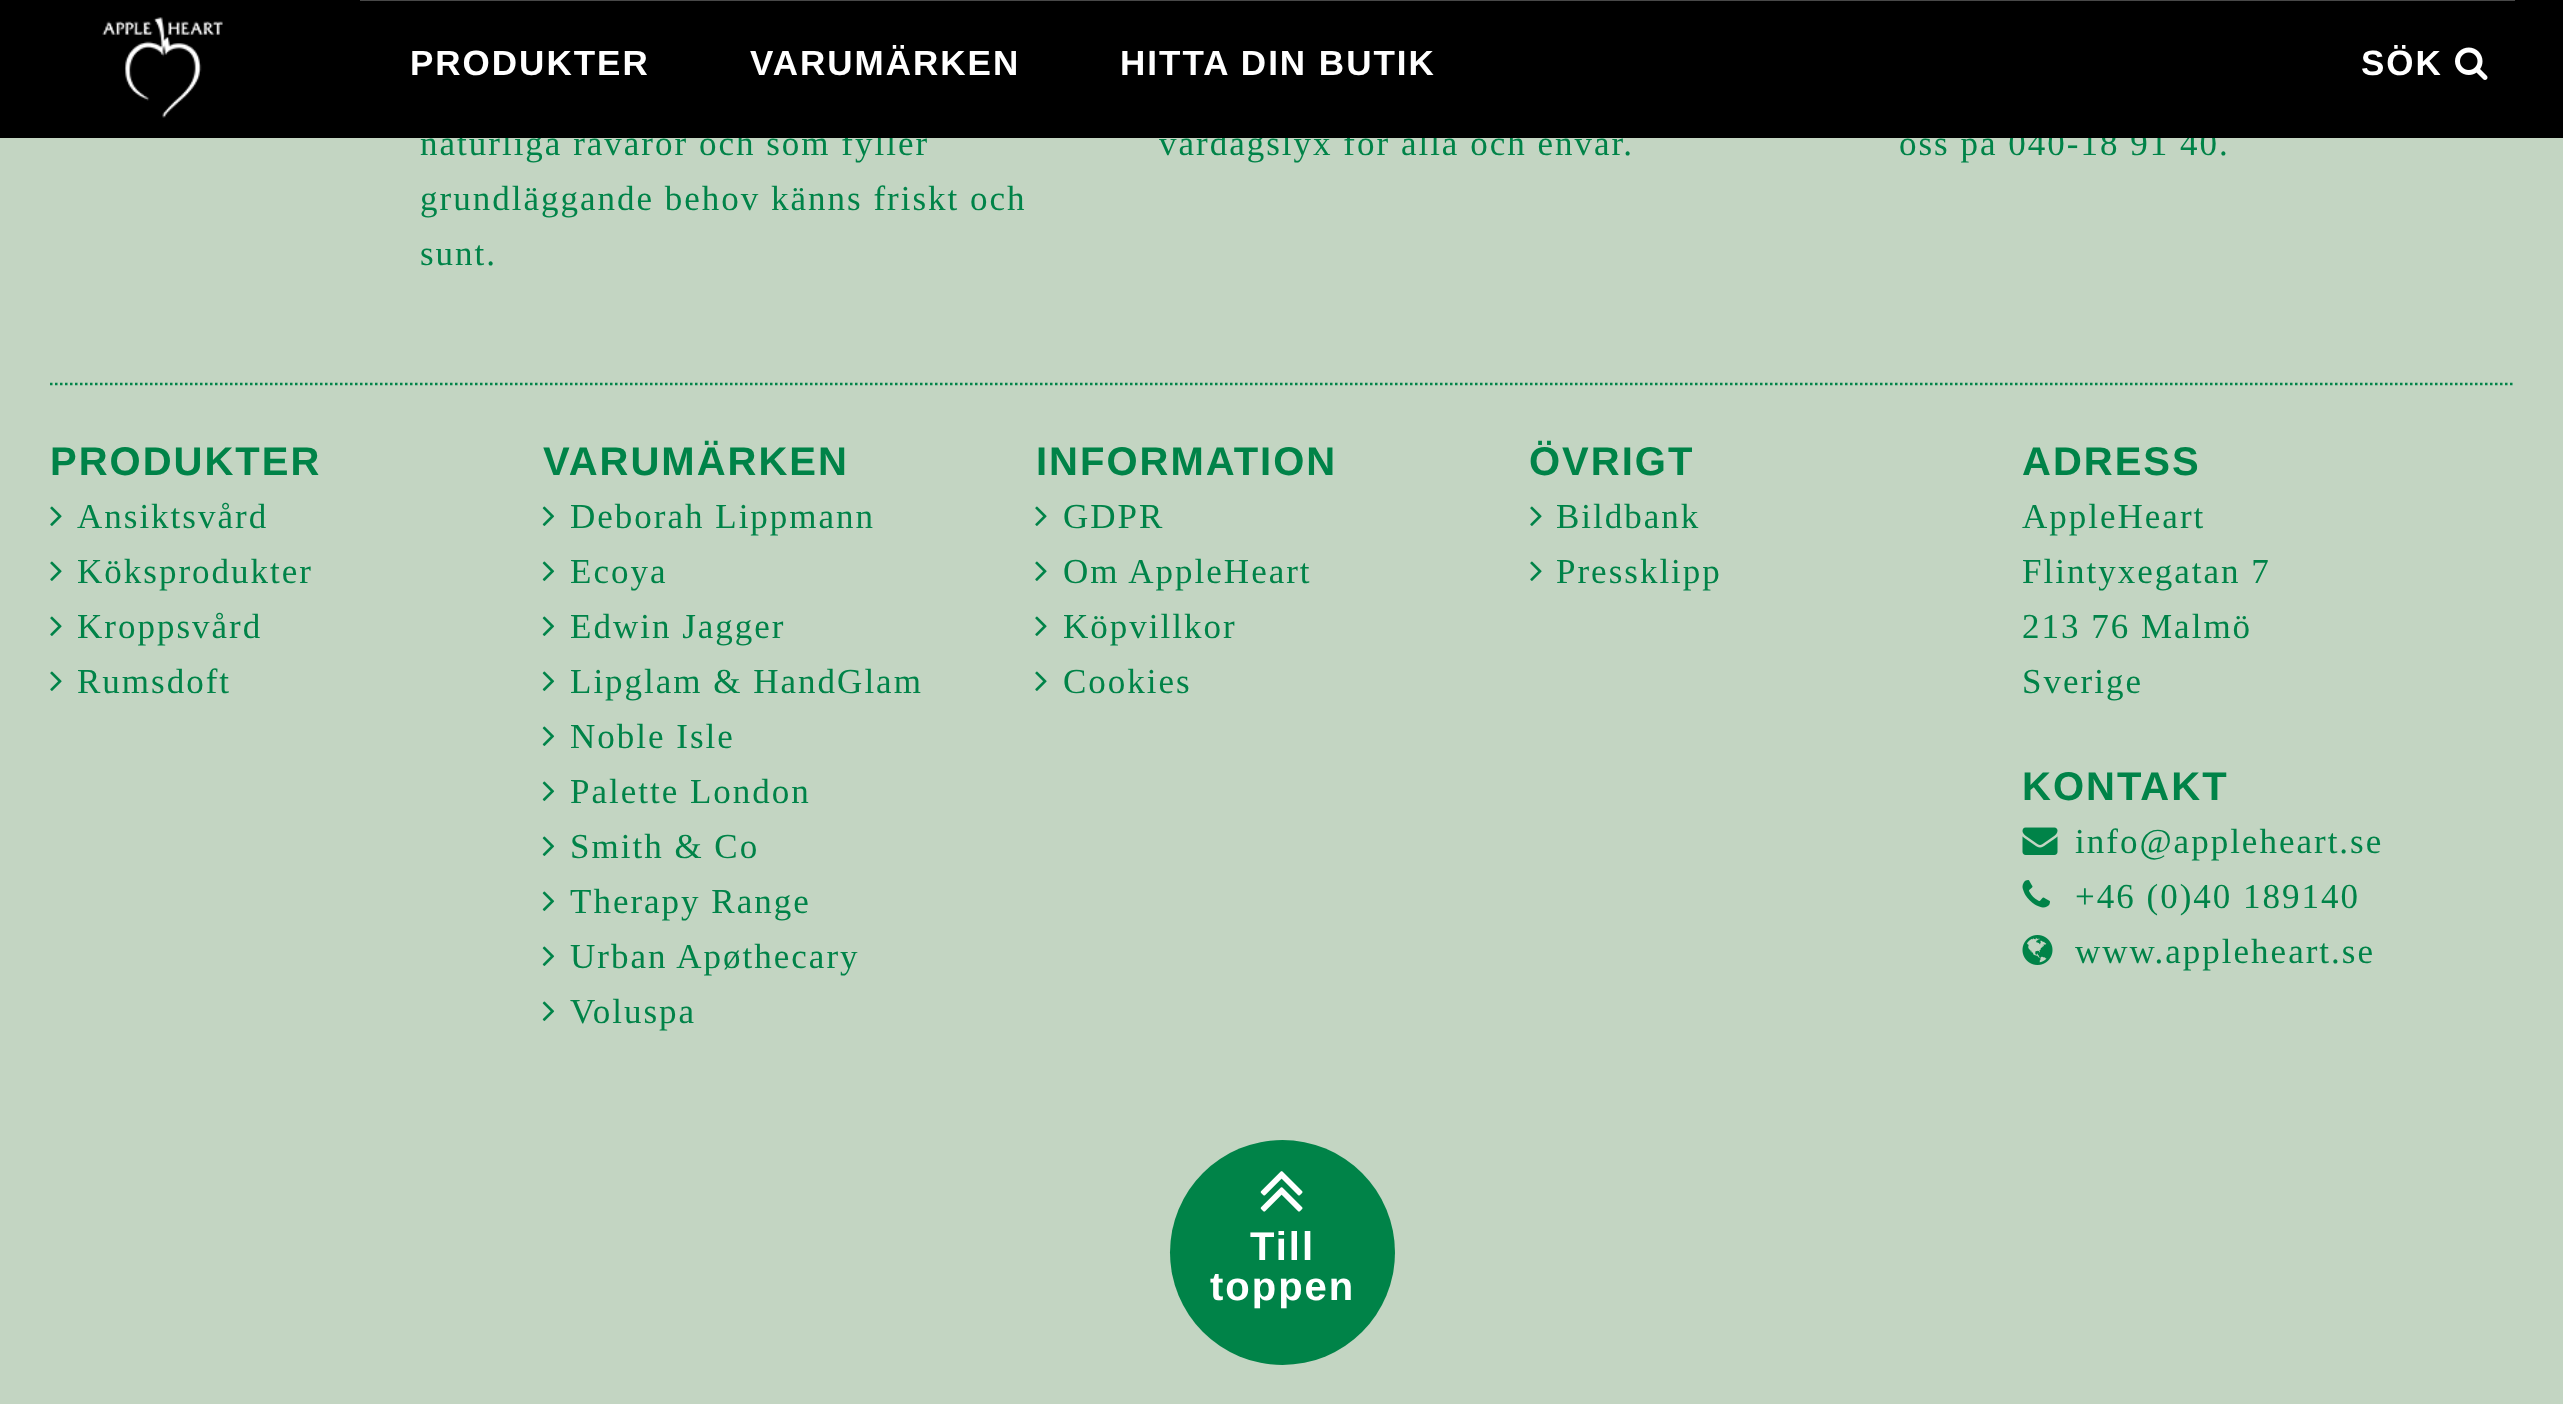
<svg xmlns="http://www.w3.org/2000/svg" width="2563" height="1404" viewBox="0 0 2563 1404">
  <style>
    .t1 { font: 35px Liberation Serif; letter-spacing: 2px; fill: #008348; }
    .t2 { font: bold 35px Liberation Sans; letter-spacing: 2px; fill: #fff; }
    .t3 { font: bold 40px Liberation Sans; letter-spacing: 2px; fill: #008348; }
    .t4 { font: bold 40px Liberation Sans; letter-spacing: 2px; fill: #fff; }
  </style>
  <rect width="100%" height="100%" fill="#c3d5c2"/>
  <text x="420" y="155" class="t1">naturliga råvaror och som fyller</text>
  <text x="1159" y="155" class="t1">vardagslyx för alla och envar.</text>
  <text x="1899" y="155" class="t1">oss på 040-18 91 40.</text>
  <rect x="0" y="0" width="2563" height="138" fill="#000"/>
  <image x="102" y="17" width="121" height="101" href="images/1.png"/>
  <rect x="360" y="0" width="2155" height="1" fill="#484848"/>
  <text x="410" y="75" class="t2">PRODUKTER</text>
  <text x="750" y="75" class="t2">VARUMÄRKEN</text>
  <text x="1120" y="75" class="t2">HITTA DIN BUTIK</text>
  <text x="2361" y="75" class="t2">SÖK</text>
  <image x="2455" y="47" width="33" height="33" href="images/2.png"/>
  <path d="M50 384H2515" fill="none" stroke="#008348" stroke-width="2.5" stroke-dasharray="2.5 2.5"/>
  <text x="420" y="210" class="t1">grundläggande behov känns friskt och</text>
  <text x="420" y="265" class="t1">sunt.</text>
  <text x="50" y="475" class="t3">PRODUKTER</text>
  <image x="50" y="506" width="12" height="20" href="images/3.png"/>
  <text x="77" y="528" class="t1">Ansiktsvård</text>
  <image x="50" y="561" width="12" height="20" href="images/3.png"/>
  <text x="77" y="583" class="t1">Köksprodukter</text>
  <image x="50" y="616" width="12" height="20" href="images/3.png"/>
  <text x="77" y="638" class="t1">Kroppsvård</text>
  <image x="50" y="671" width="12" height="20" href="images/3.png"/>
  <text x="77" y="693" class="t1">Rumsdoft</text>
  <text x="543" y="475" class="t3">VARUMÄRKEN</text>
  <image x="542" y="506" width="13" height="20" href="images/4.png"/>
  <text x="570" y="528" class="t1">Deborah Lippmann</text>
  <image x="542" y="561" width="13" height="20" href="images/4.png"/>
  <text x="570" y="583" class="t1">Ecoya</text>
  <image x="542" y="616" width="13" height="20" href="images/4.png"/>
  <text x="570" y="638" class="t1">Edwin Jagger</text>
  <image x="542" y="671" width="13" height="20" href="images/4.png"/>
  <text x="570" y="693" class="t1">Lipglam &amp; HandGlam</text>
  <image x="542" y="726" width="13" height="20" href="images/4.png"/>
  <text x="570" y="748" class="t1">Noble Isle</text>
  <image x="542" y="781" width="13" height="20" href="images/4.png"/>
  <text x="570" y="803" class="t1">Palette London</text>
  <image x="542" y="836" width="13" height="20" href="images/4.png"/>
  <text x="570" y="858" class="t1">Smith &amp; Co</text>
  <image x="542" y="891" width="13" height="20" href="images/4.png"/>
  <text x="570" y="913" class="t1">Therapy Range</text>
  <image x="542" y="946" width="13" height="20" href="images/4.png"/>
  <text x="570" y="968" class="t1">Urban Apøthecary</text>
  <image x="542" y="1001" width="13" height="20" href="images/4.png"/>
  <text x="570" y="1023" class="t1">Voluspa</text>
  <text x="1036" y="475" class="t3">INFORMATION</text>
  <image x="1035" y="506" width="12" height="20" href="images/3.png"/>
  <text x="1063" y="528" class="t1">GDPR</text>
  <image x="1035" y="561" width="12" height="20" href="images/3.png"/>
  <text x="1063" y="583" class="t1">Om AppleHeart</text>
  <image x="1035" y="616" width="12" height="20" href="images/3.png"/>
  <text x="1063" y="638" class="t1">Köpvillkor</text>
  <image x="1035" y="671" width="12" height="20" href="images/3.png"/>
  <text x="1063" y="693" class="t1">Cookies</text>
  <text x="1529" y="475" class="t3">ÖVRIGT</text>
  <image x="1530" y="506" width="12" height="20" href="images/3.png"/>
  <text x="1556" y="528" class="t1">Bildbank</text>
  <image x="1530" y="561" width="12" height="20" href="images/3.png"/>
  <text x="1556" y="583" class="t1">Pressklipp</text>
  <text x="2022" y="475" class="t3">ADRESS</text>
  <text x="2022" y="528" class="t1">AppleHeart</text>
  <text x="2022" y="583" class="t1">Flintyxegatan 7</text>
  <text x="2022" y="638" class="t1">213 76 Malmö</text>
  <text x="2022" y="693" class="t1">Sverige</text>
  <text x="2022" y="800" class="t3">KONTAKT</text>
  <image x="2022" y="827" width="36" height="28" href="images/5.png"/>
  <text x="2075" y="853" class="t1">info@appleheart.se</text>
  <image x="2022" y="880" width="28" height="28" href="images/6.png"/>
  <text x="2075" y="908" class="t1">+46 (0)40 189140</text>
  <image x="2022" y="935" width="31" height="30" href="images/7.png"/>
  <text x="2075" y="963" class="t1">www.appleheart.se</text>
  <circle cx="1282.5" cy="1252.5" r="112.5" fill="#008348"/>
  <image x="1260" y="1171" width="43" height="41" href="images/8.png"/>
  <text x="1250" y="1260" class="t4">Till</text>
  <text x="1210" y="1300" class="t4">toppen</text>
</svg>
